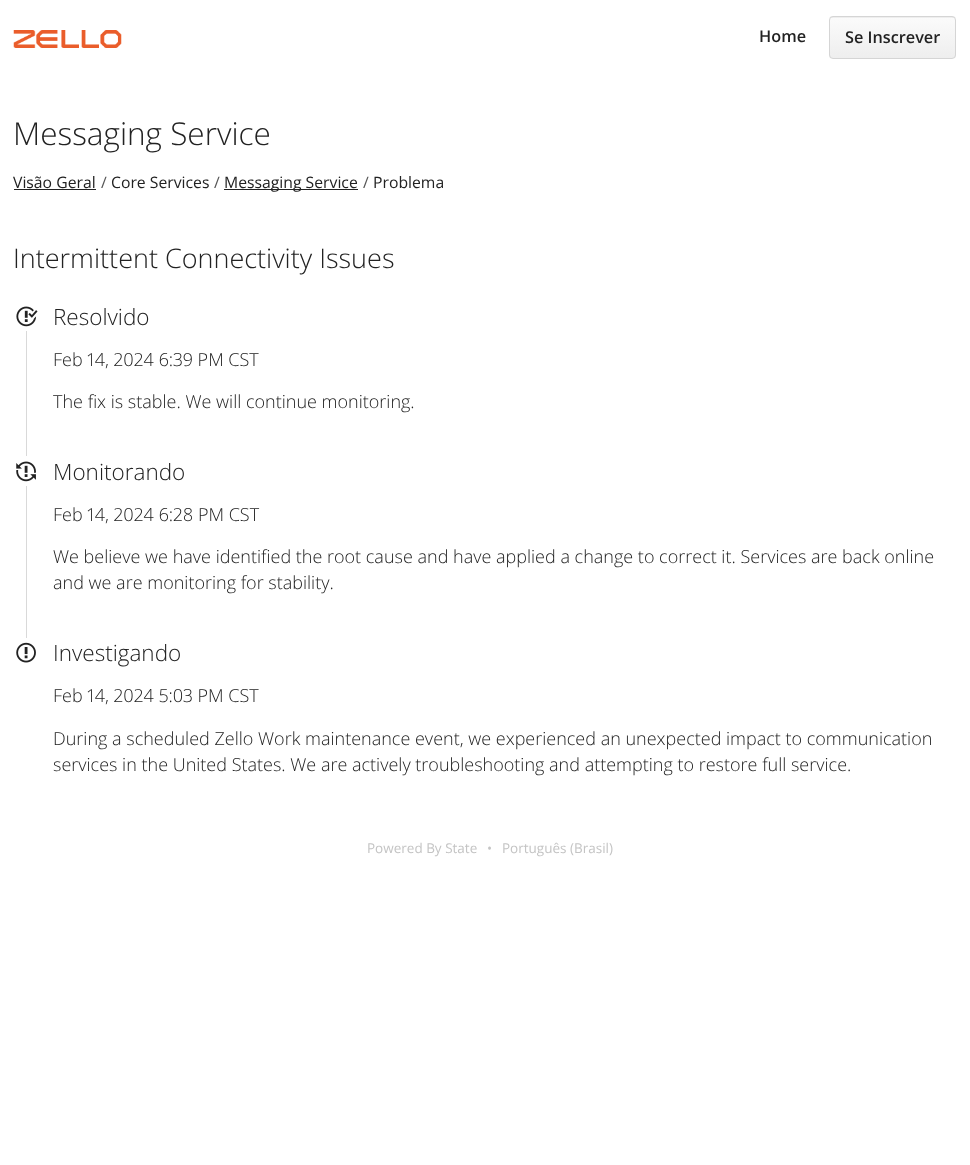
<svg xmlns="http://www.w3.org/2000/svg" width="970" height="1165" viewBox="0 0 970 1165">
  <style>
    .t1 { font: 600 16.25px Open Sans; fill: #222; }
    .t2 { font: 300 31.5px Open Sans; fill: #222; }
    .t3 { font: 15.75px Open Sans; fill: #222; }
    .t4 { font: 15.75px Open Sans; fill: #565656; }
    .t5 { font: 300 27px Open Sans; fill: #222; }
    .t6 { font: 300 22.5px Open Sans; fill: #222; }
    .t7 { font: 300 18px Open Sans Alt; fill: #222; }
    .t8 { font: 300 18px Open Sans; fill: #222; }
    .t9 { font: 13.5px Open Sans; fill: #c4c4c4; }
  </style>
  <defs>
    <clipPath id="clip1"><rect x="829" y="16" width="127" height="43" rx="4"/></clipPath>
    <linearGradient id="g1" gradientUnits="userSpaceOnUse" x1="893" y1="-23" x2="893" y2="18"><stop offset="0" stop-color="#fbfbfb"/><stop offset="1" stop-color="#eee"/></linearGradient>
    <linearGradient id="g2" gradientUnits="userSpaceOnUse" x1="893" y1="17" x2="893" y2="58"><stop offset="0" stop-color="#fbfbfb"/><stop offset="1" stop-color="#eee"/></linearGradient>
  </defs>
  <rect width="100%" height="100%" fill="#fff"/>
  <image x="13" y="30" width="109" height="18" href="images/1.png"/>
  <text x="759" y="42" class="t1">Home</text>
  <g clip-path="url(#clip1)">
    <rect x="829" y="16" width="127" height="2" fill="url(#g1)"/>
    <rect x="829" y="18" width="127" height="40" fill="url(#g2)"/>
  </g>
  <rect x="829.5" y="16.5" width="126" height="42" rx="3.5" fill="none" stroke="#d5d5d5"/>
  <text x="845" y="43" class="t1">Se Inscrever</text>
  <text x="13" y="145" class="t2">Messaging Service</text>
  <text x="13" y="188" class="t3">Visão Geral</text>
  <rect x="14" y="189" width="82" height="1" fill="#222"/>
  <text x="101" y="188" class="t4">/</text>
  <text x="111" y="188" class="t3">Core Services</text>
  <text x="214" y="188" class="t4">/</text>
  <rect x="224" y="189" width="134" height="1" fill="#222"/>
  <text x="224" y="188" class="t3">Messaging Service</text>
  <text x="363" y="188" class="t4">/</text>
  <text x="373" y="188" class="t3">Problema</text>
  <text x="13" y="268" class="t5">Intermittent Connectivity Issues</text>
  <rect x="26" y="331" width="1" height="307" fill="#d9d9d9"/>
  <image x="16" y="306" width="22" height="21" href="images/2.png"/>
  <text x="53" y="325" class="t6">Resolvido</text>
  <text x="53" y="366" class="t7">Feb 14, 2024 6:39 PM CST</text>
  <text x="53" y="408" class="t8">The fix is stable. We will continue monitoring.</text>
  <rect x="26" y="456" width="1" height="30" fill="#fff"/>
  <image x="16" y="461" width="20" height="21" href="images/3.png"/>
  <text x="53" y="480" class="t6">Monitorando</text>
  <text x="53" y="521" class="t7">Feb 14, 2024 6:28 PM CST</text>
  <text x="53" y="563" class="t8">We believe we have identified the root cause and have applied a change to correct it. Services are back online</text>
  <text x="53" y="589" class="t8">and we are monitoring for stability.</text>
  <image x="16" y="642" width="20" height="21" href="images/4.png"/>
  <text x="53" y="661" class="t6">Investigando</text>
  <text x="53" y="702" class="t7">Feb 14, 2024 5:03 PM CST</text>
  <text x="53" y="745" class="t8">During a scheduled Zello Work maintenance event, we experienced an unexpected impact to communication</text>
  <text x="53" y="771" class="t8">services in the United States. We are actively troubleshooting and attempting to restore full service.</text>
  <text x="367" y="853" class="t9">Powered By State</text>
  <text x="487" y="853" class="t9">•</text>
  <text x="502" y="853" class="t9">Português (Brasil)</text>
</svg>
